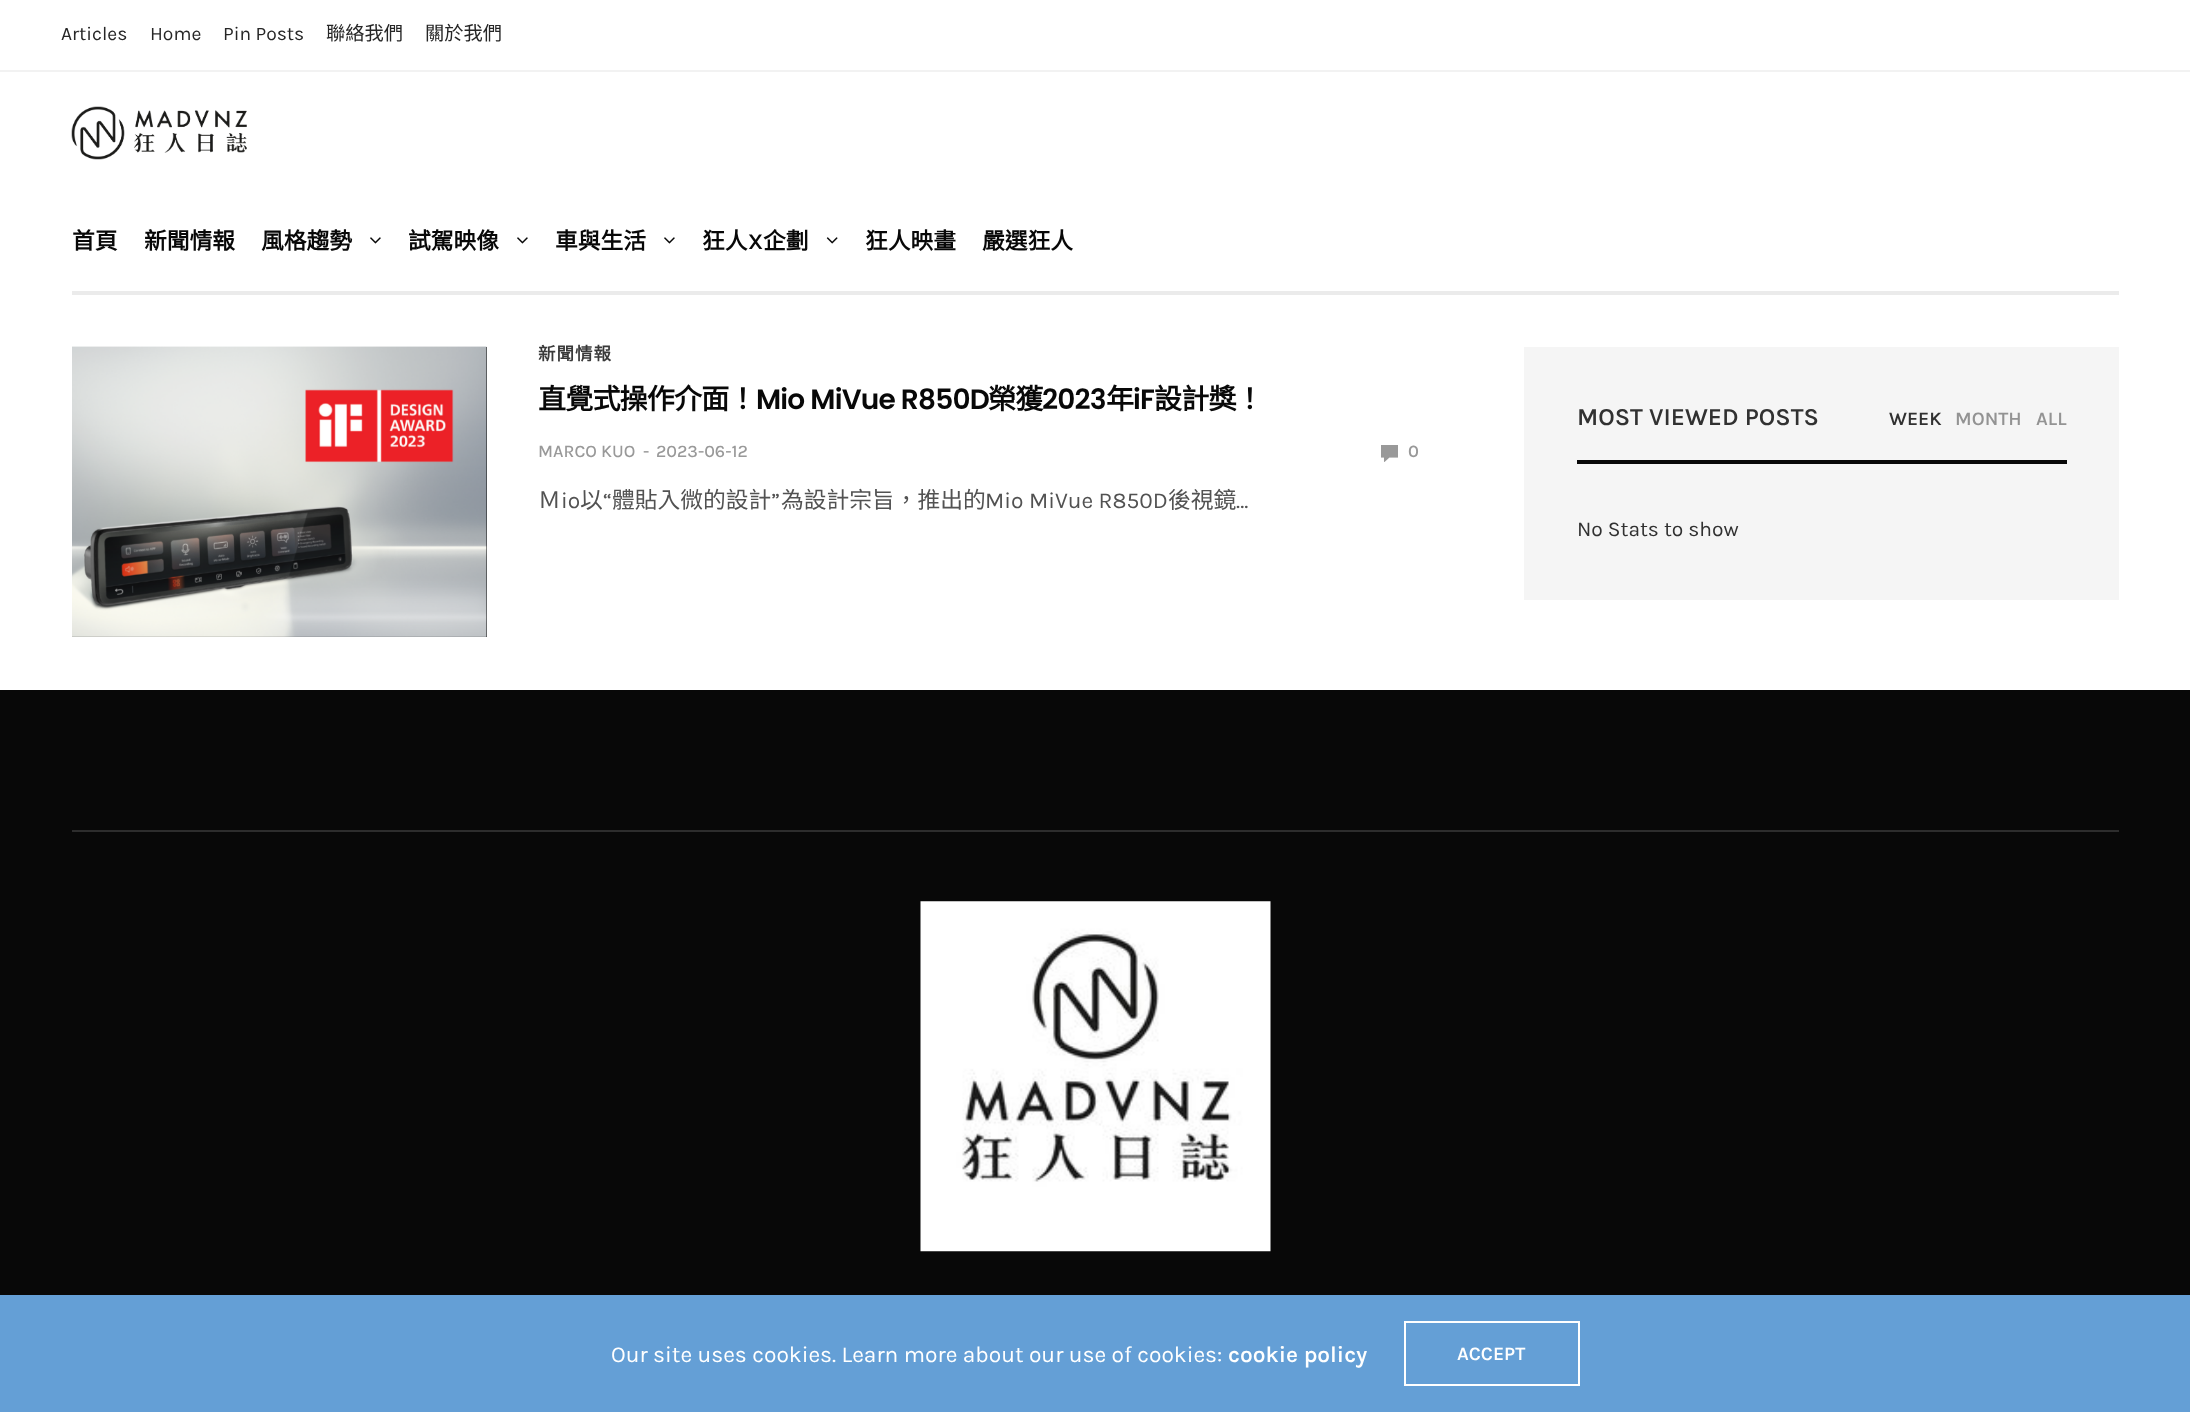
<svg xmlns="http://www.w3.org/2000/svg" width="2190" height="1412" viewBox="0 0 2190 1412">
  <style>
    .t1 { font: 19.25px Karla; fill: #262626; }
    .t2 { font: 19.25px Noto Sans CJK TC; fill: #262626; }
    .t3 { font: bold 22.75px Noto Sans CJK TC; fill: #080808; }
    .t4 { font: 600 22.75px Karla; fill: #080808; }
    .t5 { font: bold 17.5px Noto Sans CJK TC; letter-spacing: 1px; fill: #393939; }
    .t6 { font: bold 28px Noto Sans CJK TC; letter-spacing: -0.8px; fill: #080808; }
    .t7 { font: 600 28px Poppins; letter-spacing: -0.8px; fill: #080808; }
    .t8 { font: 500 17.5px Karla; fill: #999; }
    .t9 { font: 600 17.5px Karla; fill: #999; }
    .t10 { font: 22.75px Noto Sans CJK TC; fill: #525252; }
    .t11 { font: 22.75px Karla; fill: #525252; }
    .t12 { font: 600 24.5px Karla; fill: #313131; }
    .t13 { font: 600 19.25px Karla; fill: #313131; }
    .t14 { font: 600 19.25px Karla; fill: #939393; }
    .t15 { font: 21px Karla; fill: #313131; }
    .t16 { font: 22.75px Karla; fill: #fff; }
    .t17 { font: 600 22.75px Karla; fill: #fff; }
    .t18 { font: 600 19.25px Karla; fill: #fff; }
  </style>
  <rect width="100%" height="100%" fill="#fff"/>
  <rect x="0" y="70" width="2190" height="2" fill="#f2f2f2"/>
  <text x="61" y="40" class="t1">Articles</text>
  <text x="150" y="40" class="t1">Home</text>
  <text x="223" y="40" class="t1">Pin Posts</text>
  <text x="326" y="40" class="t2">聯絡我們</text>
  <text x="425" y="40" class="t2">關於我們</text>
  <image x="71" y="106" width="176" height="54" href="images/1.png"/>
  <rect x="72" y="291" width="2047" height="4" fill="#ebebeb"/>
  <text x="72" y="249" class="t3">首頁</text>
  <text x="144" y="249" class="t3">新聞情報</text>
  <text x="261" y="249" class="t3">風格趨勢</text>
  <image x="370" y="237" width="11" height="7" href="images/2.png"/>
  <text x="408" y="249" class="t3">試駕映像</text>
  <image x="517" y="237" width="11" height="7" href="images/2.png"/>
  <text x="555" y="249" class="t3">車與生活</text>
  <image x="664" y="237" width="11" height="7" href="images/2.png"/>
  <text x="702" y="249" class="t3">狂人</text>
  <text x="748" y="249" class="t4">X</text>
  <text x="763" y="249" class="t3">企劃</text>
  <image x="826" y="237" width="12" height="7" href="images/3.png"/>
  <text x="865" y="249" class="t3">狂人映畫</text>
  <text x="982" y="249" class="t3">嚴選狂人</text>
  <rect x="72" y="347" width="415" height="290" fill="#080808"/>
  <image x="72" y="346" width="415" height="291" href="images/4.png"/>
  <text x="538" y="360" class="t5">新聞情報</text>
  <text x="538" y="409" class="t6">直覺式操作介面！</text>
  <text x="756" y="409" class="t7">Mio MiVue R850D</text>
  <text x="988" y="409" class="t6">榮獲</text>
  <text x="1042" y="409" class="t7">2023</text>
  <text x="1106" y="409" class="t6">年</text>
  <text x="1133" y="409" class="t7">iF</text>
  <text x="1154" y="409" class="t6">設計獎！</text>
  <text x="538" y="457" class="t8">MARCO KUO</text>
  <text x="643" y="457" class="t8">-</text>
  <text x="656" y="457" class="t8">2023-06-12</text>
  <image x="1381" y="445" width="17" height="17" href="images/5.png"/>
  <text x="1408" y="457" class="t9">0</text>
  <text x="538" y="508" class="t10">Ｍ</text>
  <text x="561" y="508" class="t11">io</text>
  <text x="580" y="508" class="t10">以</text>
  <text x="603" y="508" class="t11">“</text>
  <text x="612" y="508" class="t10">體貼入微的設計</text>
  <text x="771" y="508" class="t11">”</text>
  <text x="781" y="508" class="t10">為設計宗旨，推出的</text>
  <text x="985" y="508" class="t11">Mio MiVue R850D</text>
  <text x="1168" y="508" class="t10">後視鏡</text>
  <text x="1236" y="508" class="t11">…</text>
  <rect x="1524" y="347" width="595" height="253" fill="#f5f5f5"/>
  <rect x="1577" y="460" width="490" height="4" fill="#080808"/>
  <text x="1577" y="425" class="t12">MOST VIEWED POSTS</text>
  <text x="1889" y="425" class="t13">WEEK</text>
  <text x="1955" y="425" class="t14">MONTH</text>
  <text x="2036" y="425" class="t14">ALL</text>
  <text x="1577" y="536" class="t15">No Stats to show</text>
  <rect x="0" y="690" width="2190" height="605" fill="#080808"/>
  <rect x="72" y="830" width="2047" height="2" fill="#2d2d2d"/>
  <image x="920" y="901" width="351" height="351" href="images/6.png"/>
  <rect x="0" y="1295" width="2190" height="117" fill="#649fd6"/>
  <text x="611" y="1362" class="t16">Our site uses cookies. Learn more about our use of cookies:</text>
  <text x="1228" y="1362" class="t17">cookie policy</text>
  <rect x="1405" y="1322" width="174" height="63" fill="none" stroke="#fff" stroke-width="2"/>
  <text x="1457" y="1360" class="t18">ACCEPT</text>
</svg>
